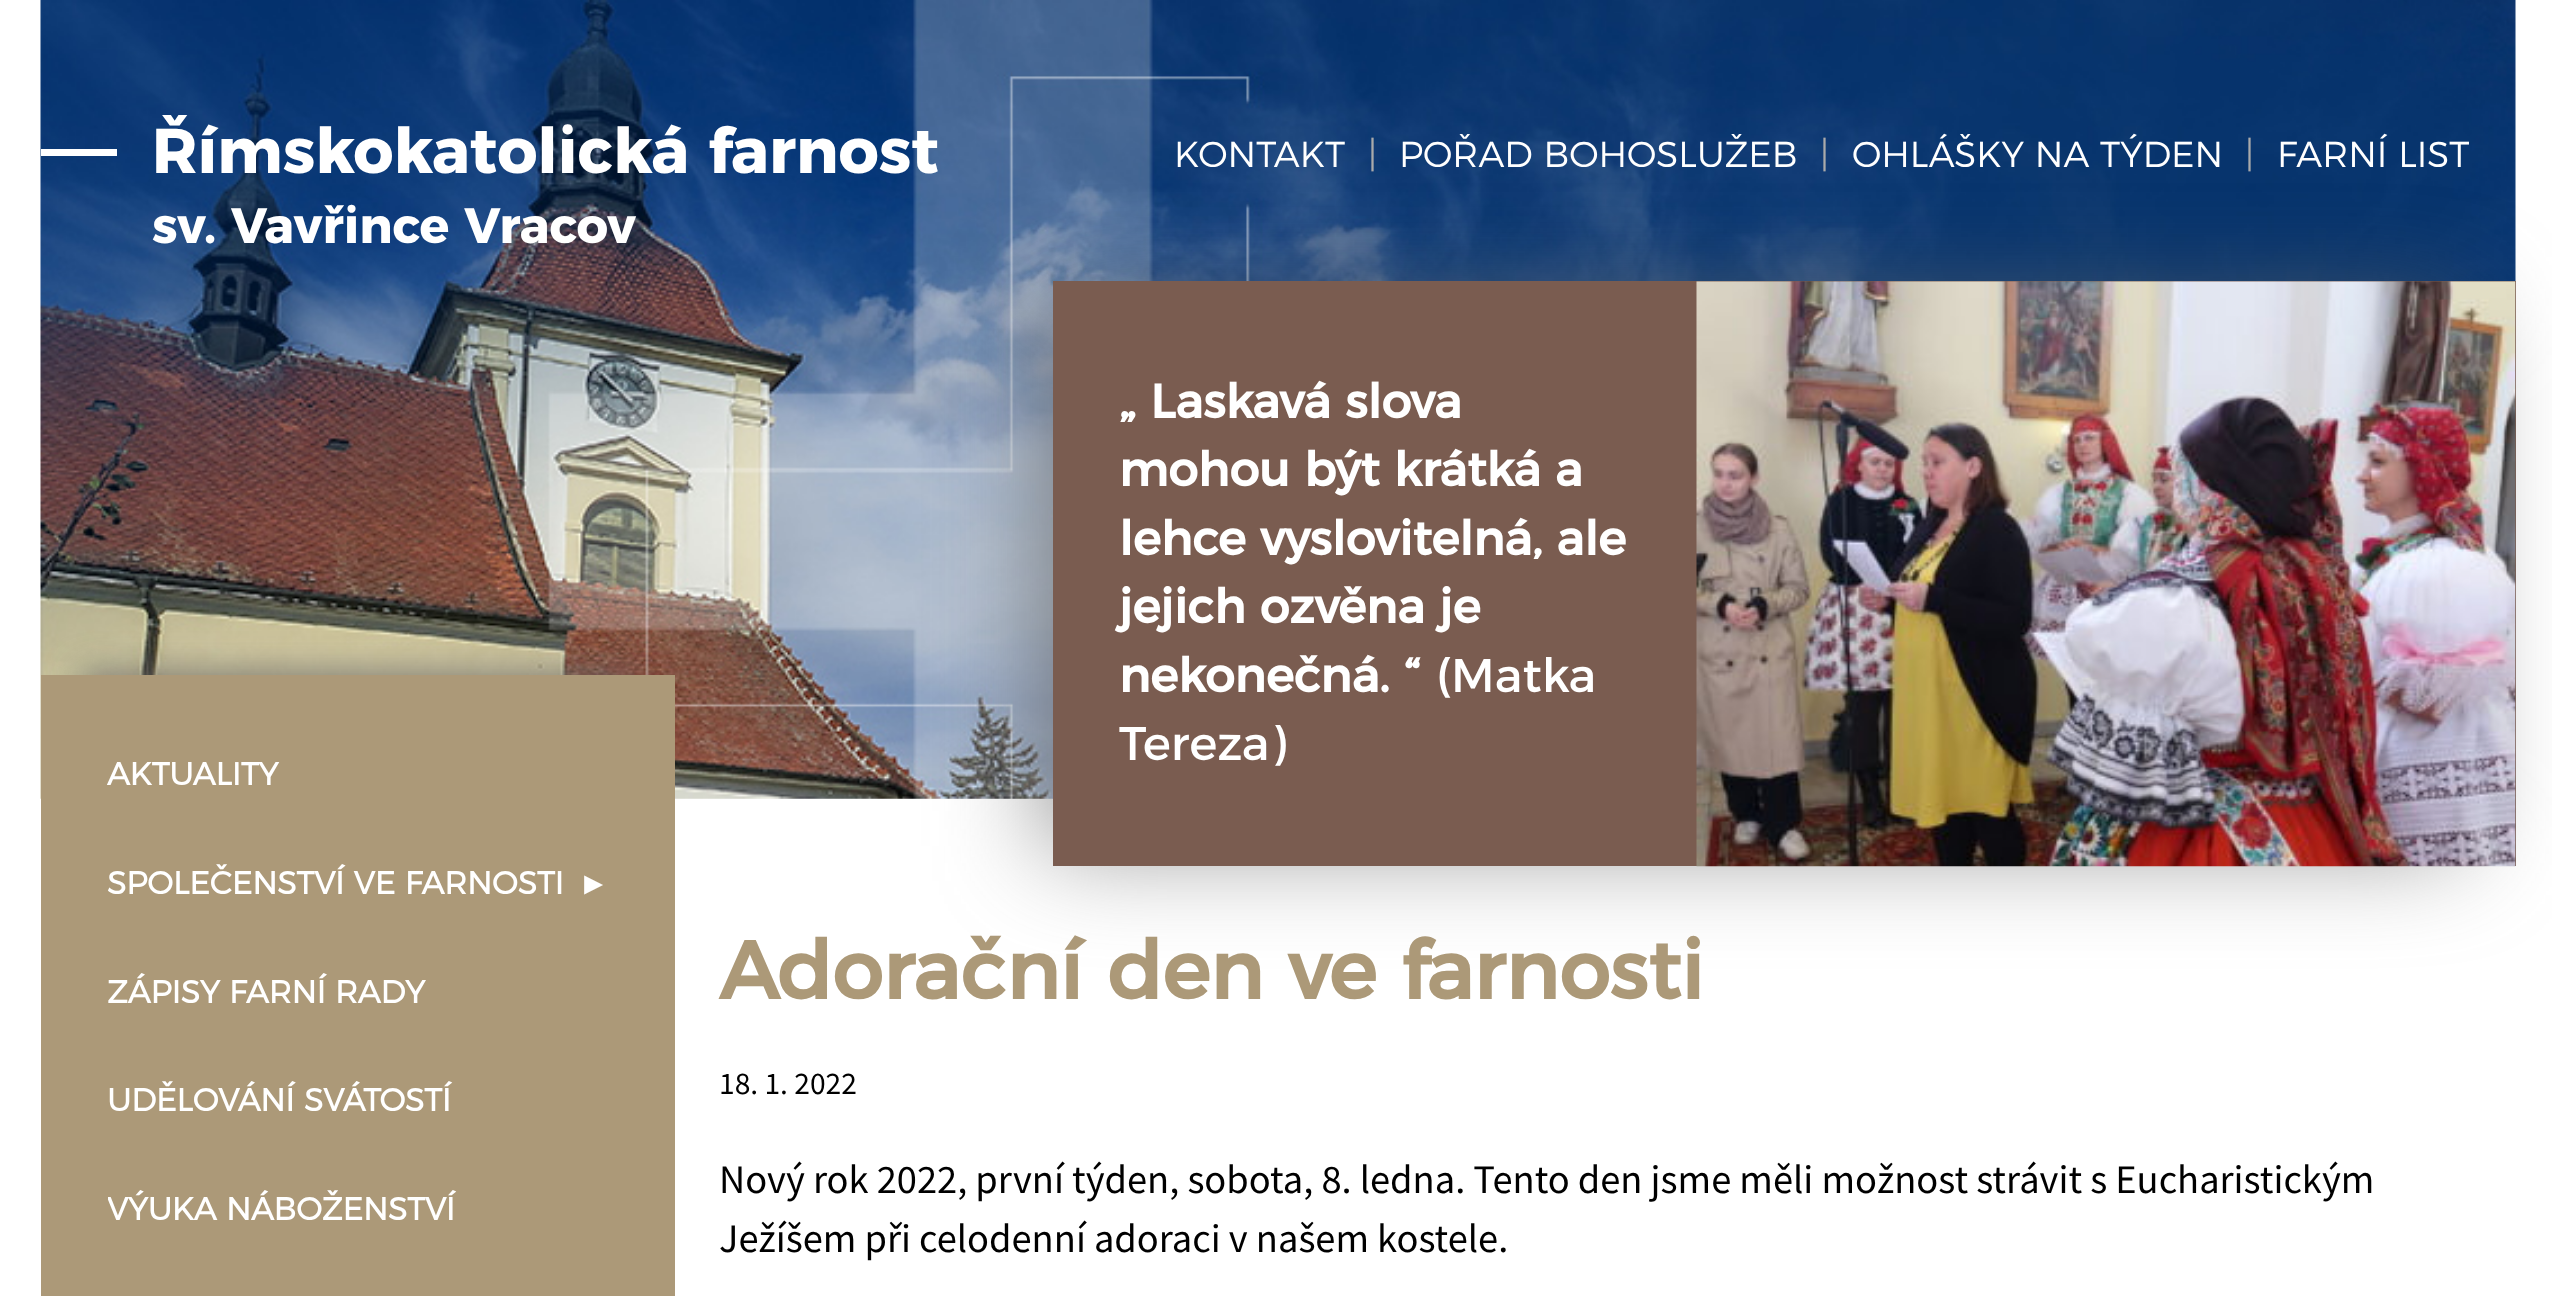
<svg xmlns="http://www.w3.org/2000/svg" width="2552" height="1296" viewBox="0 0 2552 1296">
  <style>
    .t1 { font: bold 63px Montserrat; fill: #fff; }
    .t2 { font: bold 49.5px Montserrat; fill: #fff; }
    .t3 { font: 300 36px Montserrat; fill: #fff; }
    .t4 { font: 300 36px Montserrat; fill: #aaa; }
    .t5 { font: bold 47.25px 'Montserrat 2'; fill: #fff; }
    .t6 { font: 47.25px Montserrat; fill: #fff; }
    .t7 { font: bold 31.5px 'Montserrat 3'; fill: #fff; }
    .t8 { font: bold 31.5px Liberation Sans; fill: #fff; }
    .t9 { font: bold 81px 'Montserrat 2'; fill: #ac9978; }
    .t10 { font: 31.5px Source Sans Pro; fill: #000; }
    .t11 { font: 40.5px Source Sans Pro; fill: #000; }
  </style>
  <defs>
    <clipPath id="clip1"><rect x="108" y="1154" width="556" height="108"/></clipPath>
  </defs>
  <rect width="100%" height="100%" fill="#fff"/>
  <image x="40" y="0" width="2476" height="799" href="images/1.png"/>
  <rect x="41" y="149" width="76" height="7" fill="#fff"/>
  <text x="152" y="173" class="t1">Římskokatolická farnost</text>
  <text x="152" y="243" class="t2">sv. Vavřince Vracov</text>
  <text x="1174" y="167" class="t3">KONTAKT</text>
  <text x="1368" y="167" class="t4">|</text>
  <text x="1399" y="167" class="t3">POŘAD BOHOSLUŽEB</text>
  <text x="1820" y="167" class="t4">|</text>
  <text x="1852" y="167" class="t3">OHLÁŠKY NA TÝDEN</text>
  <text x="2245" y="167" class="t4">|</text>
  <text x="2277" y="167" class="t3">FARNÍ LIST</text>
  <rect x="1044" y="306" width="1418" height="540" fill="#666666bf" filter="blur(52px)"/>
  <rect x="1053" y="281" width="1463" height="585" fill="#7a5c50"/>
  <text x="1119" y="418" class="t5">„ Laskavá slova</text>
  <text x="1119" y="486" class="t5">mohou být krátká a</text>
  <text x="1119" y="555" class="t5">lehce vyslovitelná, ale</text>
  <text x="1119" y="623" class="t5">jejich ozvěna je</text>
  <text x="1119" y="692" class="t5">nekonečná. “</text>
  <text x="1436" y="692" class="t6">(Matka</text>
  <text x="1119" y="760" class="t6">Tereza)</text>
  <image x="1696" y="281" width="820" height="586" href="images/2.png"/>
  <rect x="81" y="671" width="554" height="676" fill="#666666bf" filter="blur(17px)"/>
  <rect x="41" y="675" width="634" height="621" fill="#ac9978"/>
  <text x="107" y="785" class="t7">AKTUALITY</text>
  <text x="107" y="894" class="t7">SPOLEČENSTVÍ VE FARNOSTI</text>
  <text x="578" y="894" class="t8">►</text>
  <text x="107" y="1003" class="t7">ZÁPISY FARNÍ RADY</text>
  <text x="107" y="1111" class="t7">UDĚLOVÁNÍ SVÁTOSTÍ</text>
  <g clip-path="url(#clip1)">
    <text x="107" y="1220" class="t7">VÝUKA NÁBOŽENSTVÍ</text>
  </g>
  <text x="719" y="999" class="t9">Adorační den ve farnosti</text>
  <text x="719" y="1094" class="t10">18. 1. 2022</text>
  <text x="719" y="1193" class="t11">Nový rok 2022, první týden, sobota, 8. ledna. Tento den jsme měli možnost strávit s Eucharistickým</text>
  <text x="719" y="1252" class="t11">Ježíšem při celodenní adoraci v našem kostele.</text>
</svg>
